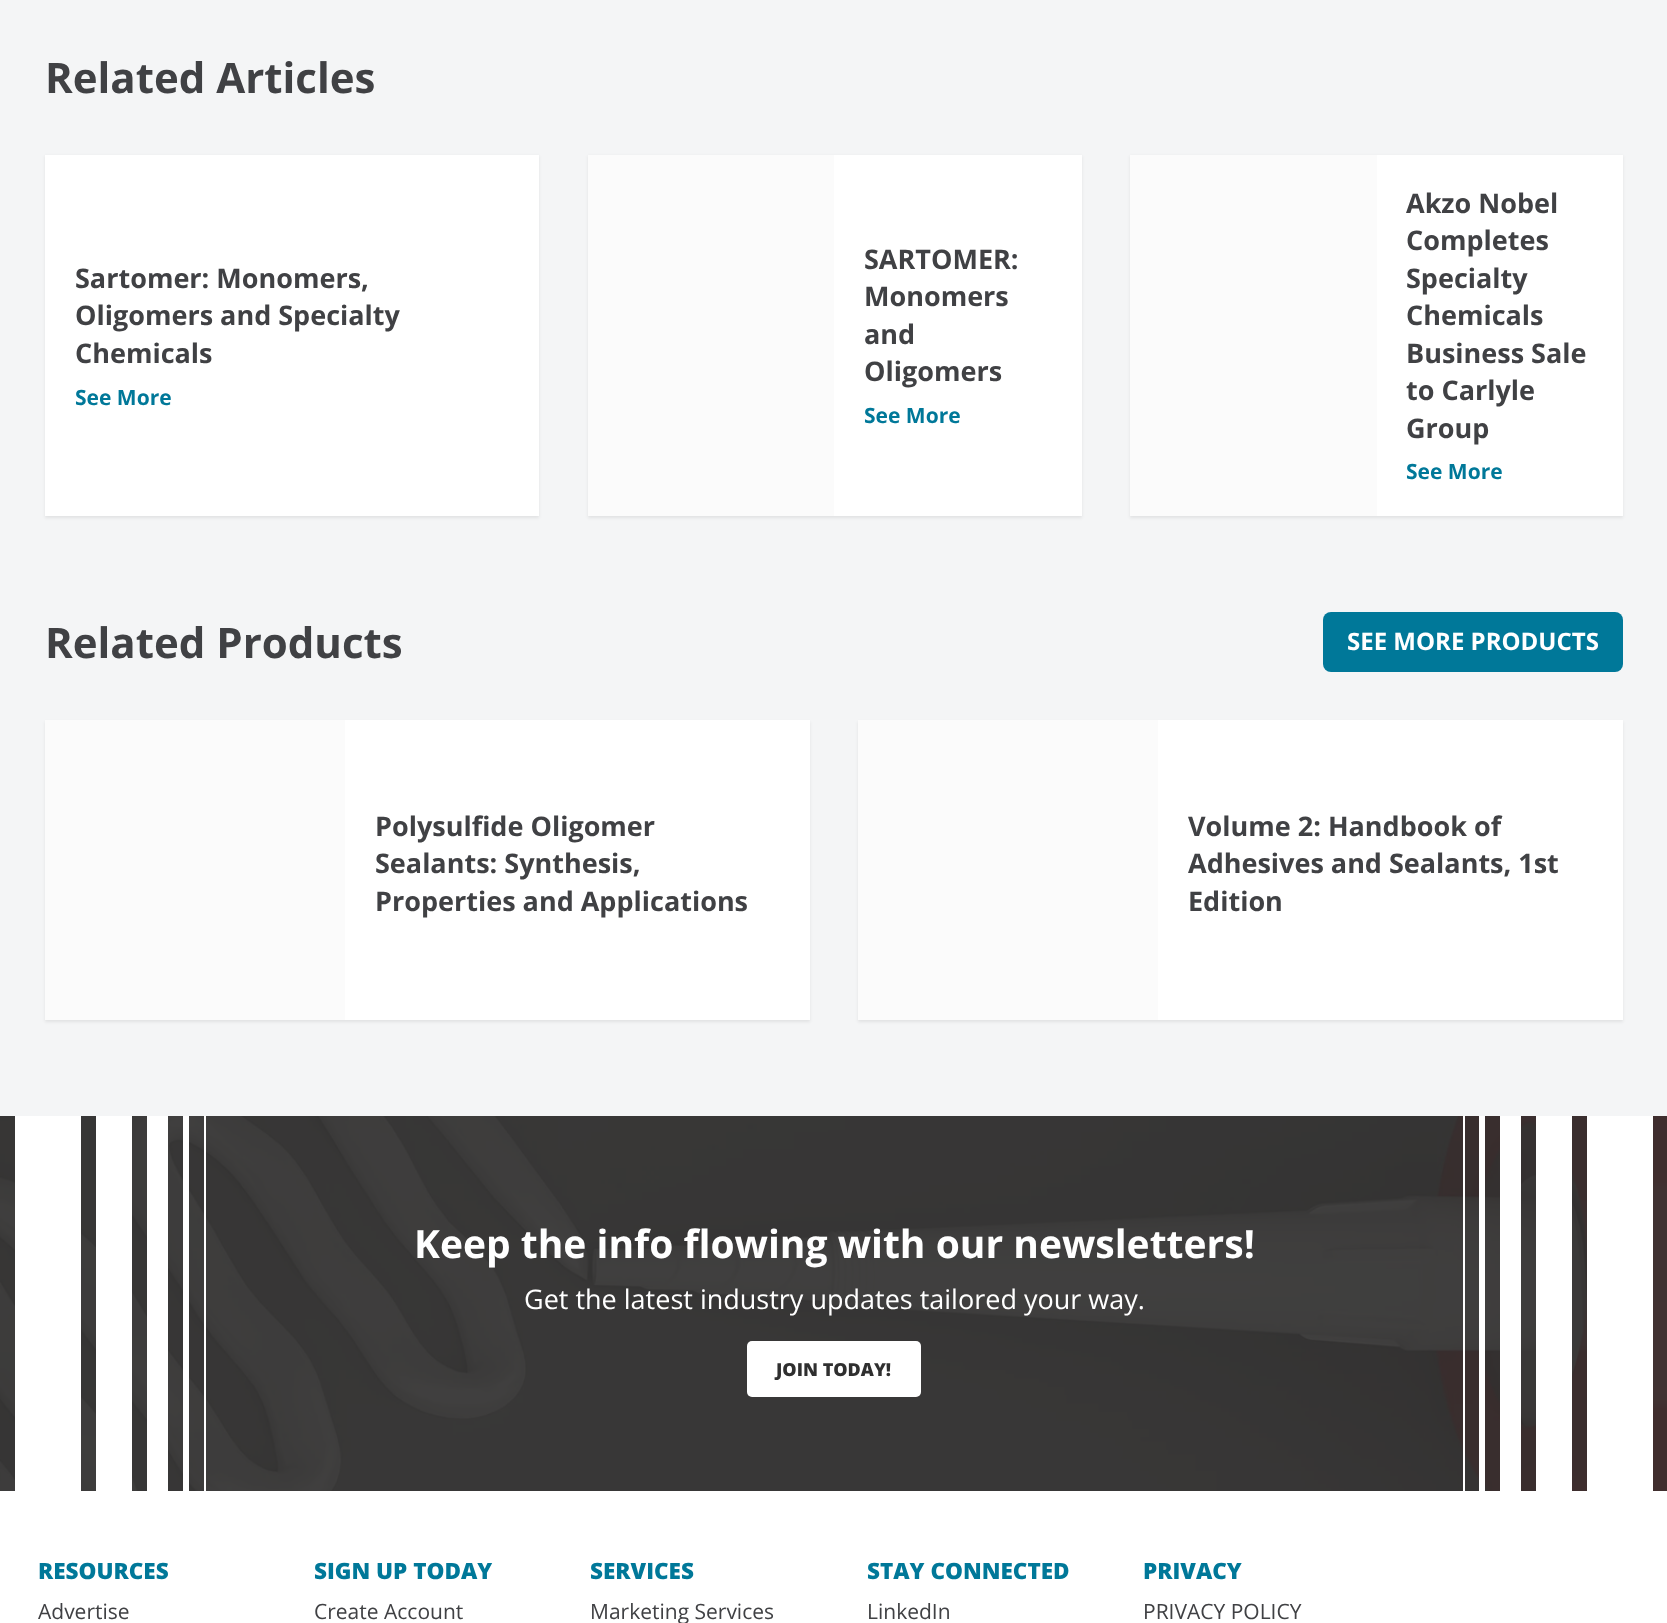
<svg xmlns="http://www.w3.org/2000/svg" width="1667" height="1623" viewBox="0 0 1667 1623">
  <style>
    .t1 { font: bold 42px Open Sans; fill: #404144; }
    .t2 { font: bold 27px Open Sans; fill: #404144; }
    .t3 { font: bold 21px Open Sans; fill: #007899; }
    .t4 { font: bold 24px Open Sans; fill: #fff; }
    .t5 { font: bold 39px Open Sans; fill: #fff; }
    .t6 { font: 27px Open Sans; fill: #fff; }
    .t7 { font: 800 18px Open Sans; fill: #2f2f2f; }
    .t8 { font: 800 22.5px Open Sans; fill: #007899; }
    .t9 { font: 21px Open Sans; fill: #404144; }
  </style>
  <rect width="100%" height="100%" fill="#f4f5f6"/>
  <text x="45" y="93" class="t1">Related Articles</text>
  <rect x="45" y="156" width="494" height="362" fill="#090f1314" filter="blur(1.5px)"/>
  <rect x="45" y="155" width="494" height="361" fill="#fff"/>
  <text x="75" y="288" class="t2">Sartomer: Monomers,</text>
  <text x="75" y="325" class="t2">Oligomers and Specialty</text>
  <text x="75" y="363" class="t2">Chemicals</text>
  <text x="75" y="405" class="t3">See More</text>
  <rect x="588" y="156" width="494" height="362" fill="#090f1314" filter="blur(1.5px)"/>
  <rect x="834" y="155" width="248" height="361" fill="#fff"/>
  <rect x="588" y="155" width="246" height="361" fill="#fbfbfb"/>
  <text x="864" y="269" class="t2">SARTOMER:</text>
  <text x="864" y="306" class="t2">Monomers</text>
  <text x="864" y="344" class="t2">and</text>
  <text x="864" y="381" class="t2">Oligomers</text>
  <text x="864" y="423" class="t3">See More</text>
  <rect x="1130" y="156" width="493" height="362" fill="#090f1314" filter="blur(1.5px)"/>
  <rect x="1377" y="155" width="246" height="361" fill="#fff"/>
  <rect x="1130" y="155" width="247" height="361" fill="#fbfbfb"/>
  <text x="1406" y="213" class="t2">Akzo Nobel</text>
  <text x="1406" y="250" class="t2">Completes</text>
  <text x="1406" y="288" class="t2">Specialty</text>
  <text x="1406" y="325" class="t2">Chemicals</text>
  <text x="1406" y="363" class="t2">Business Sale</text>
  <text x="1406" y="400" class="t2">to Carlyle</text>
  <text x="1406" y="438" class="t2">Group</text>
  <text x="1406" y="479" class="t3">See More</text>
  <text x="45" y="658" class="t1">Related Products</text>
  <rect x="1323" y="612" width="300" height="60" rx="8" fill="#007899"/>
  <text x="1347" y="650" class="t4">SEE MORE PRODUCTS</text>
  <rect x="45" y="722" width="765" height="300" fill="#090f1314" filter="blur(1.5px)"/>
  <rect x="345" y="720" width="465" height="300" fill="#fff"/>
  <rect x="45" y="720" width="300" height="300" fill="#fbfbfb"/>
  <text x="375" y="836" class="t2">Polysulfide Oligomer</text>
  <text x="375" y="873" class="t2">Sealants: Synthesis,</text>
  <text x="375" y="911" class="t2">Properties and Applications</text>
  <rect x="858" y="722" width="765" height="300" fill="#090f1314" filter="blur(1.5px)"/>
  <rect x="1158" y="720" width="465" height="300" fill="#fff"/>
  <rect x="858" y="720" width="300" height="300" fill="#fbfbfb"/>
  <text x="1188" y="836" class="t2">Volume 2: Handbook of</text>
  <text x="1188" y="873" class="t2">Adhesives and Sealants, 1st</text>
  <text x="1188" y="911" class="t2">Edition</text>
  <image x="0" y="1116" width="1667" height="375" href="images/1.png"/>
  <rect x="15" y="1116" width="66" height="375" fill="#fff"/>
  <rect x="96" y="1116" width="36" height="375" fill="#fff"/>
  <rect x="147" y="1116" width="21" height="375" fill="#fff"/>
  <rect x="183" y="1116" width="6" height="375" fill="#fff"/>
  <rect x="204" y="1116" width="2" height="375" fill="#fff"/>
  <text x="414" y="1258" class="t5">Keep the info flowing with our newsletters!</text>
  <text x="524" y="1309" class="t6">Get the latest industry updates tailored your way.</text>
  <rect x="747" y="1341" width="174" height="56" rx="5" fill="#fff"/>
  <text x="776" y="1376" class="t7">JOIN TODAY!</text>
  <rect x="1463" y="1116" width="2" height="375" fill="#fff"/>
  <rect x="1479" y="1116" width="6" height="375" fill="#fff"/>
  <rect x="1500" y="1116" width="21" height="375" fill="#fff"/>
  <rect x="1536" y="1116" width="36" height="375" fill="#fff"/>
  <rect x="1587" y="1116" width="66" height="375" fill="#fff"/>
  <rect x="0" y="1491" width="1667" height="132" fill="#fff"/>
  <text x="38" y="1579" class="t8">RESOURCES</text>
  <text x="38" y="1619" class="t9">Advertise</text>
  <text x="314" y="1579" class="t8">SIGN UP TODAY</text>
  <text x="314" y="1619" class="t9">Create Account</text>
  <text x="590" y="1579" class="t8">SERVICES</text>
  <text x="590" y="1619" class="t9">Marketing Services</text>
  <text x="867" y="1579" class="t8">STAY CONNECTED</text>
  <text x="867" y="1619" class="t9">LinkedIn</text>
  <text x="1143" y="1579" class="t8">PRIVACY</text>
  <text x="1143" y="1619" class="t9">PRIVACY POLICY</text>
</svg>
